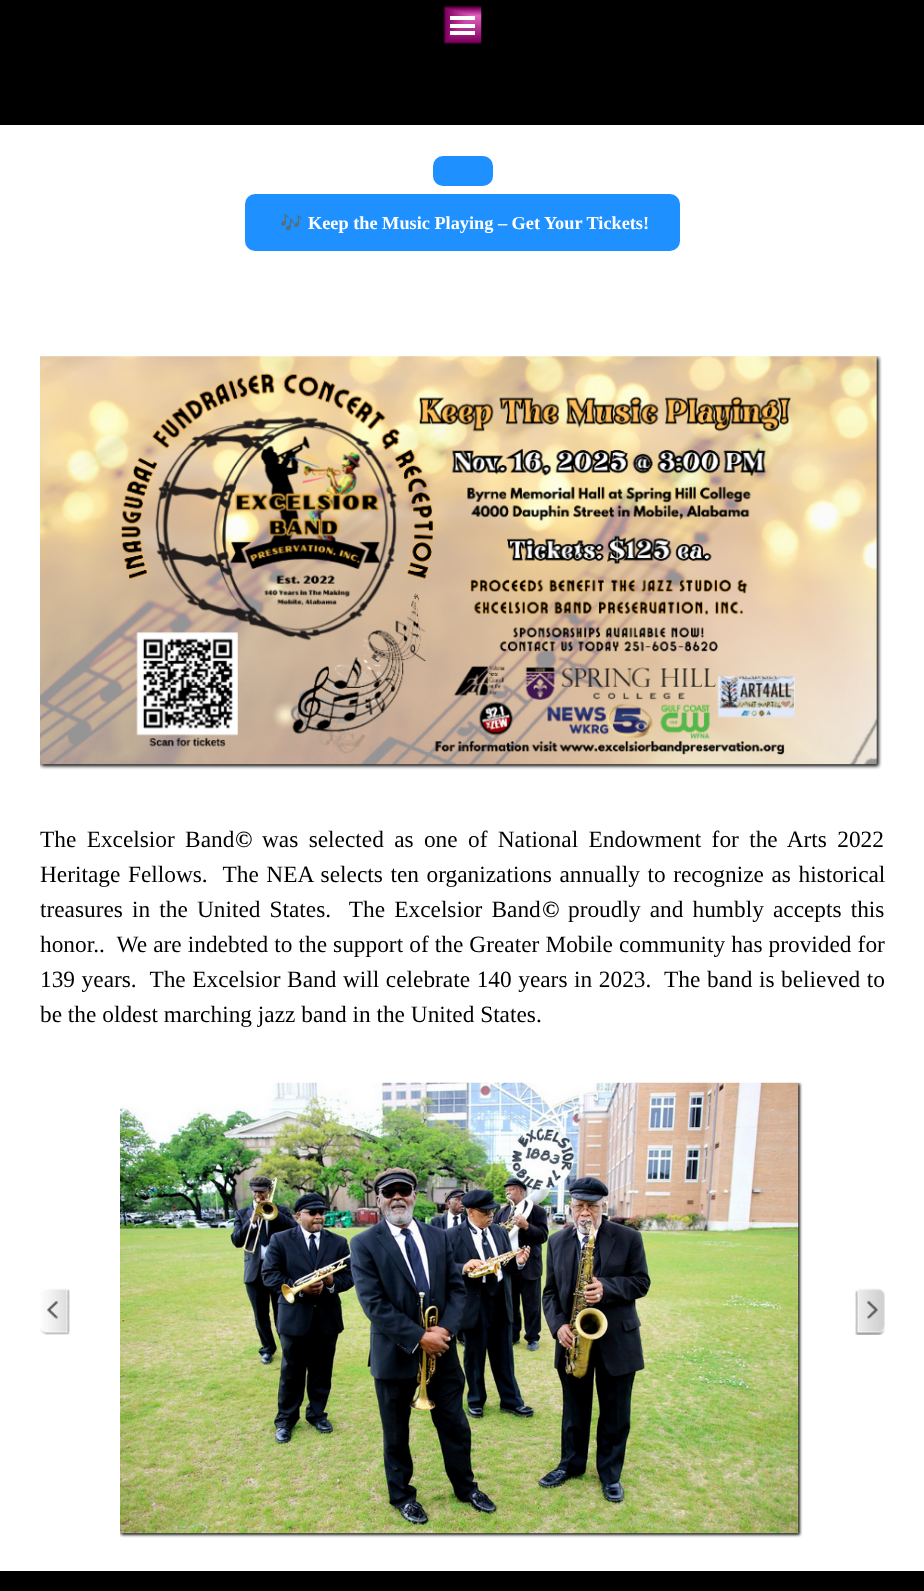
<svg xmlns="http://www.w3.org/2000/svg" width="924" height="1591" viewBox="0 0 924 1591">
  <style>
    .t1 { font: bold 18.3px Noto Color Emoji; fill: #fff; }
    .t2 { font: bold 18.3px Liberation Serif; fill: #fff; }
    .t3 { font: 23.35px Liberation Serif; fill: #000; }
    .t4 { font: bold 23.35px Liberation Serif; fill: #000; }
  </style>
  <rect width="100%" height="100%" fill="#fff"/>
  <rect x="0" y="0" width="924" height="125" fill="#000"/>
  <image x="443" y="6" width="39" height="38" href="images/1.png"/>
  <rect x="450" y="16" width="25" height="4" fill="#fff"/>
  <rect x="450" y="24" width="25" height="4" fill="#fff"/>
  <rect x="450" y="31" width="25" height="4" fill="#fff"/>
  <rect x="433" y="156" width="60" height="30" rx="10" fill="#1e90ff"/>
  <rect x="245" y="194" width="435" height="57" rx="10" fill="#1e90ff"/>
  <text x="280" y="229" class="t1">🎶</text>
  <text x="308" y="229" class="t2">Keep the Music Playing – Get Your Tickets!</text>
  <image x="40" y="356" width="842" height="414" href="images/2.png"/>
  <text x="40" y="847" word-spacing="4.5" class="t3">The Excelsior Band</text>
  <text x="235" y="847" class="t4">©</text>
  <text x="262" y="847" word-spacing="4.5" class="t3">was selected as one of National Endowment for the Arts 2022</text>
  <text x="40" y="882" word-spacing="1.75" class="t3" xml:space="preserve">Heritage Fellows.  The NEA selects ten organizations annually to recognize as historical</text>
  <text x="40" y="917" word-spacing="3.25" class="t3" xml:space="preserve">treasures in the United States.  The Excelsior Band</text>
  <text x="542" y="917" class="t4">©</text>
  <text x="568" y="917" word-spacing="3.25" class="t3">proudly and humbly accepts this</text>
  <text x="40" y="952" word-spacing="0.25" class="t3" xml:space="preserve">honor..  We are indebted to the support of the Greater Mobile community has provided for</text>
  <text x="40" y="987" word-spacing="0.75" class="t3" xml:space="preserve">139 years.  The Excelsior Band will celebrate 140 years in 2023.  The band is believed to</text>
  <text x="40" y="1022" class="t3">be the oldest marching jazz band in the United States.</text>
  <image x="40" y="1288" width="30" height="47" href="images/3.png"/>
  <image x="120" y="1082" width="683" height="456" href="images/4.png"/>
  <image x="855" y="1288" width="30" height="47" href="images/5.png"/>
  <rect x="0" y="1571" width="924" height="20" fill="#000"/>
</svg>
